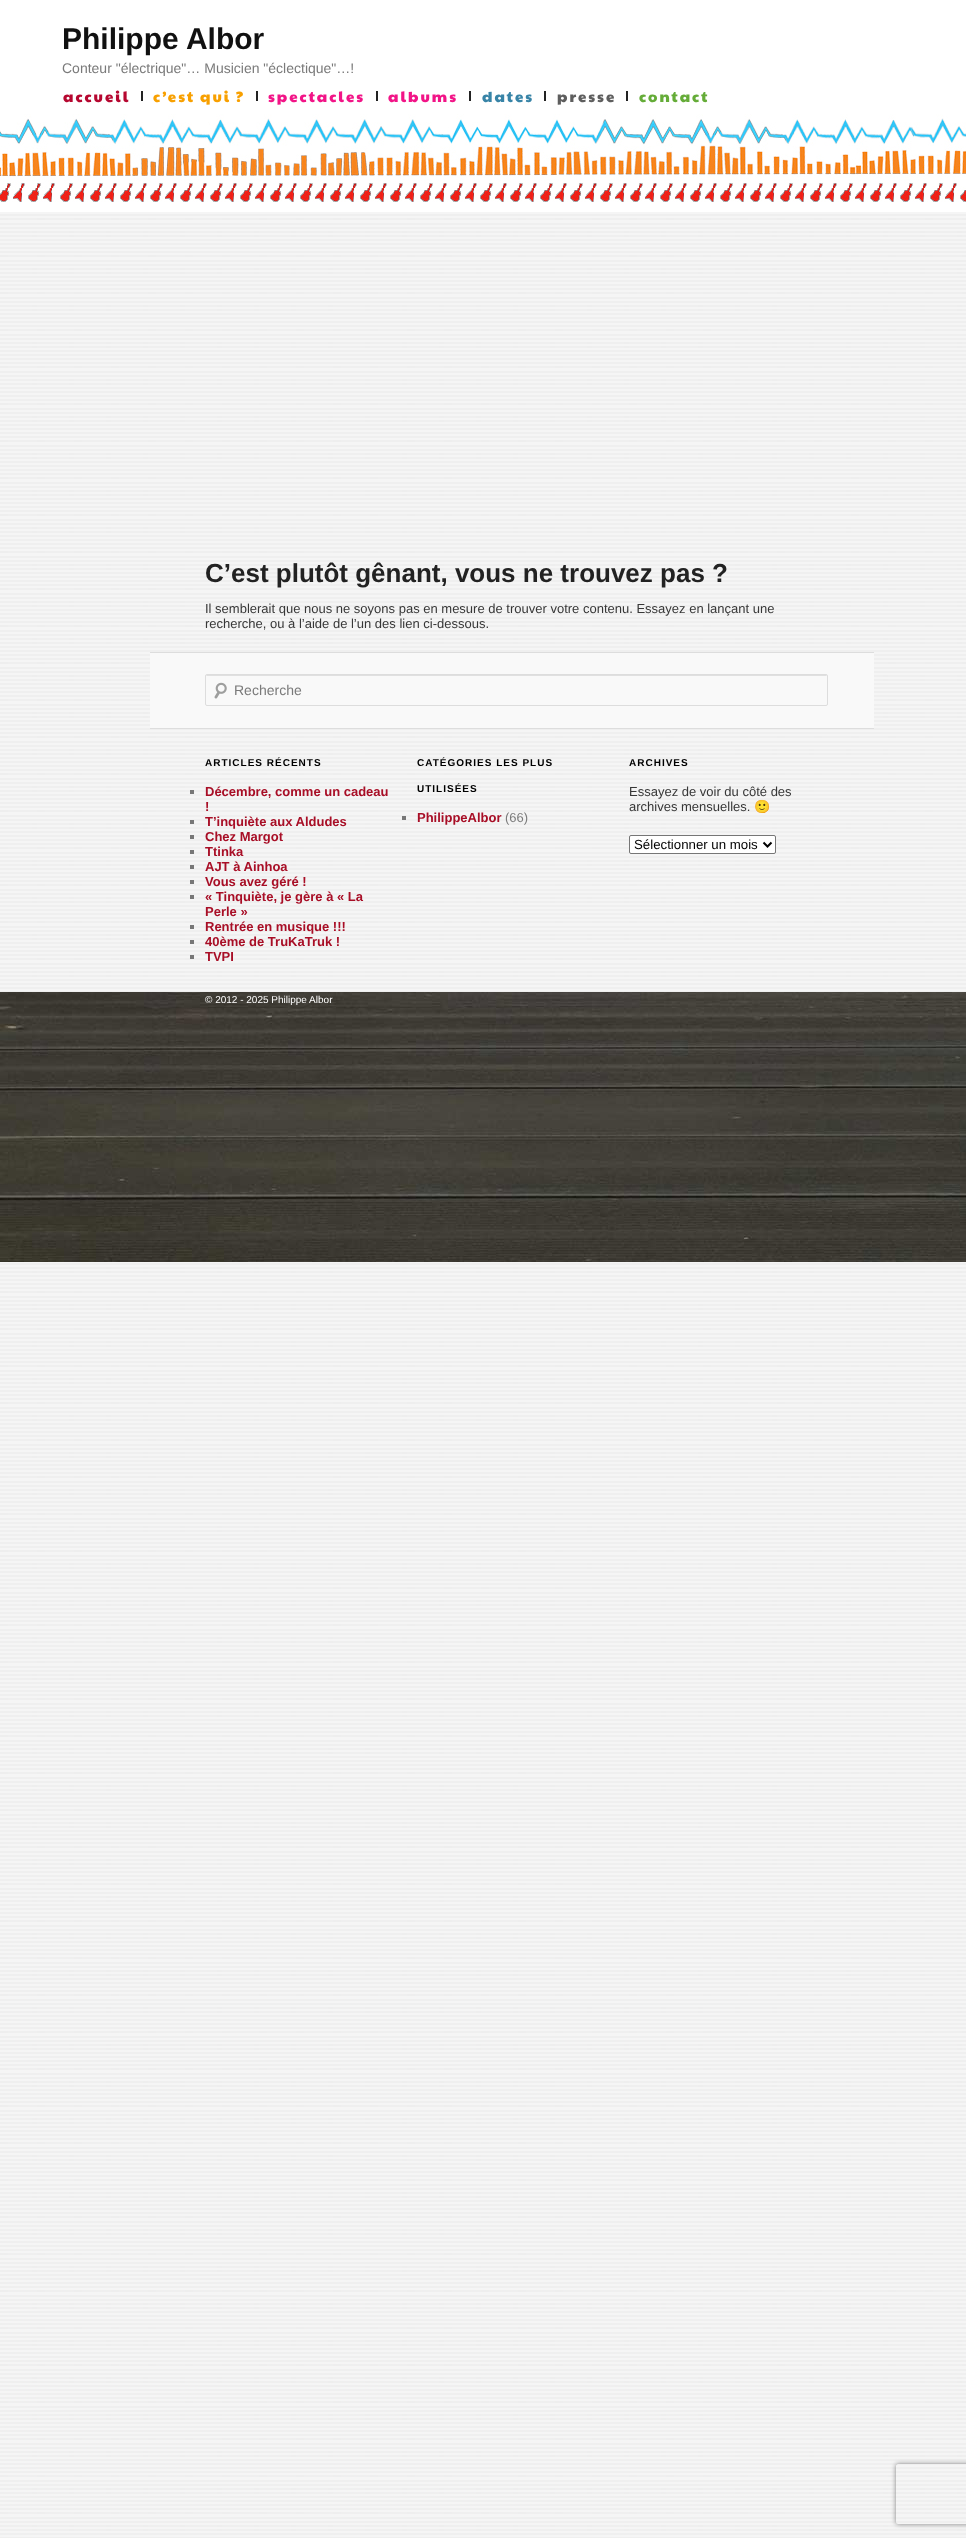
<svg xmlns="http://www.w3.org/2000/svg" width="966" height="2538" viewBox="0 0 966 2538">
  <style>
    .t1 { font: bold 30px Liberation Sans; fill: #111; }
    .t2 { font: 14px Liberation Sans; fill: #7a7a7a; }
    .t3 { font: 15px Paytone One; letter-spacing: 2px; fill: #b60730; }
    .t4 { font: 15px Paytone One; letter-spacing: 2px; fill: #f8a000; }
    .t5 { font: 15px Paytone One; letter-spacing: 2px; fill: #f21487; }
    .t6 { font: 15px Paytone One; letter-spacing: 2px; fill: #3884a7; }
    .t7 { font: 15px Paytone One; letter-spacing: 2px; fill: #5e5e5e; }
    .t8 { font: 15px Paytone One; letter-spacing: 2px; fill: #65ac38; }
    .t9 { font: bold 26px Liberation Sans; fill: #222; }
    .t10 { font: 13px Liberation Sans; fill: #373737; }
    .t11 { font: bold 10px Liberation Sans; letter-spacing: 1px; fill: #000; }
    .t12 { font: bold 13px Liberation Sans; fill: #a80e26; }
    .t13 { font: 13px Liberation Sans; fill: #7a7a7a; }
    .t14 { font: 13px Noto Color Emoji; fill: #373737; }
    .t15 { font: 13.25px Liberation Sans; fill: #000; }
    .t16 { font: 10px Liberation Sans; fill: #fff; }
  </style>
  <defs>
    <clipPath id="clip1"><path d="M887 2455H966V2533H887ZM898 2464H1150C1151 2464 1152 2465 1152 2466V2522C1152 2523 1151 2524 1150 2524H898C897 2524 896 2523 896 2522V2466C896 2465 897 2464 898 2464Z" clip-rule="evenodd"/></clipPath>
  </defs>
  <rect width="100%" height="100%" fill="#fff"/>
  <image x="0" y="212" width="966" height="2326" href="images/1.png"/>
  <image x="0" y="0" width="966" height="212" href="images/2.png"/>
  <text x="62" y="49" class="t1">Philippe Albor</text>
  <text x="62" y="73" class="t2">Conteur "électrique"… Musicien "éclectique"…!</text>
  <rect x="141" y="91" width="2" height="10" fill="#232323"/>
  <text x="63" y="102" class="t3">accueil</text>
  <rect x="256" y="91" width="2" height="10" fill="#232323"/>
  <text x="153" y="102" class="t4">c’est qui ?</text>
  <rect x="376" y="91" width="2" height="10" fill="#232323"/>
  <text x="268" y="102" class="t5">spectacles</text>
  <rect x="469" y="91" width="2" height="10" fill="#232323"/>
  <text x="388" y="102" class="t5">albums</text>
  <rect x="544" y="91" width="2" height="10" fill="#232323"/>
  <text x="482" y="102" class="t6">dates</text>
  <rect x="626" y="91" width="2" height="10" fill="#232323"/>
  <text x="557" y="102" class="t7">presse</text>
  <text x="639" y="102" class="t8">contact</text>
  <text x="205" y="582" class="t9">C’est plutôt gênant, vous ne trouvez pas ?</text>
  <text x="205" y="613" class="t10">Il semblerait que nous ne soyons pas en mesure de trouver votre contenu. Essayez en lançant une</text>
  <text x="205" y="628" class="t10">recherche, ou à l’aide de l’un des lien ci-dessous.</text>
  <rect x="150" y="653" width="724" height="75" fill="#f9f9f9"/>
  <rect x="150" y="652" width="724" height="1" fill="#ddd"/>
  <rect x="150" y="728" width="724" height="1" fill="#ddd"/>
  <image x="214" y="682" width="13" height="17" href="images/3.png"/>
  <path d="M207 675L206 676H827L826 675Z" fill="#e0e0e0"/>
  <rect x="205.5" y="674.5" width="622" height="31" rx="1.5" fill="none" stroke="#ddd"/>
  <text x="234" y="695" class="t2">Recherche</text>
  <text x="205" y="766" class="t11">ARTICLES RÉCENTS</text>
  <rect x="190" y="790" width="4" height="4" fill="#777"/>
  <text x="205" y="796" class="t12">Décembre, comme un cadeau</text>
  <text x="205" y="811" class="t12">!</text>
  <rect x="190" y="820" width="4" height="4" fill="#777"/>
  <text x="205" y="826" class="t12">T’inquiète aux Aldudes</text>
  <rect x="190" y="835" width="4" height="4" fill="#777"/>
  <text x="205" y="841" class="t12">Chez Margot</text>
  <rect x="190" y="850" width="4" height="4" fill="#777"/>
  <text x="205" y="856" class="t12">Ttinka</text>
  <rect x="190" y="865" width="4" height="4" fill="#777"/>
  <text x="205" y="871" class="t12">AJT à Ainhoa</text>
  <rect x="190" y="880" width="4" height="4" fill="#777"/>
  <text x="205" y="886" class="t12">Vous avez géré !</text>
  <rect x="190" y="895" width="4" height="4" fill="#777"/>
  <text x="205" y="901" class="t12">« Tinquiète, je gère à « La</text>
  <text x="205" y="916" class="t12">Perle »</text>
  <rect x="190" y="925" width="4" height="4" fill="#777"/>
  <text x="205" y="931" class="t12">Rentrée en musique !!!</text>
  <rect x="190" y="940" width="4" height="4" fill="#777"/>
  <text x="205" y="946" class="t12">40ème de TruKaTruk !</text>
  <rect x="190" y="955" width="4" height="4" fill="#777"/>
  <text x="205" y="961" class="t12">TVPI</text>
  <text x="417" y="766" class="t11">CATÉGORIES LES PLUS</text>
  <text x="417" y="792" class="t11">UTILISÉES</text>
  <rect x="402" y="816" width="4" height="4" fill="#777"/>
  <text x="417" y="822" class="t12">PhilippeAlbor</text>
  <text x="505" y="822" class="t13">(66)</text>
  <text x="629" y="766" class="t11">ARCHIVES</text>
  <text x="629" y="796" class="t10">Essayez de voir du côté des</text>
  <text x="629" y="811" class="t10">archives mensuelles.</text>
  <text x="754" y="811" class="t14">🙂</text>
  <rect x="629.5" y="835.5" width="146" height="18" rx="1.5" fill="#fff" stroke="#767676"/>
  <path d="M763.5 842.5L767.5 846.5L771.5 842.5" fill="none" stroke="#000" stroke-width="2"/>
  <text x="634" y="849" class="t15">Sélectionner un mois</text>
  <image x="0" y="992" width="966" height="270" href="images/4.png"/>
  <text x="205" y="1003" class="t16">© 2012 - 2025 Philippe Albor</text>
  <g clip-path="url(#clip1)">
    <rect x="896" y="2464" width="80" height="60" rx="2" fill="#808080" filter="blur(2.5px)"/>
  </g>
</svg>
